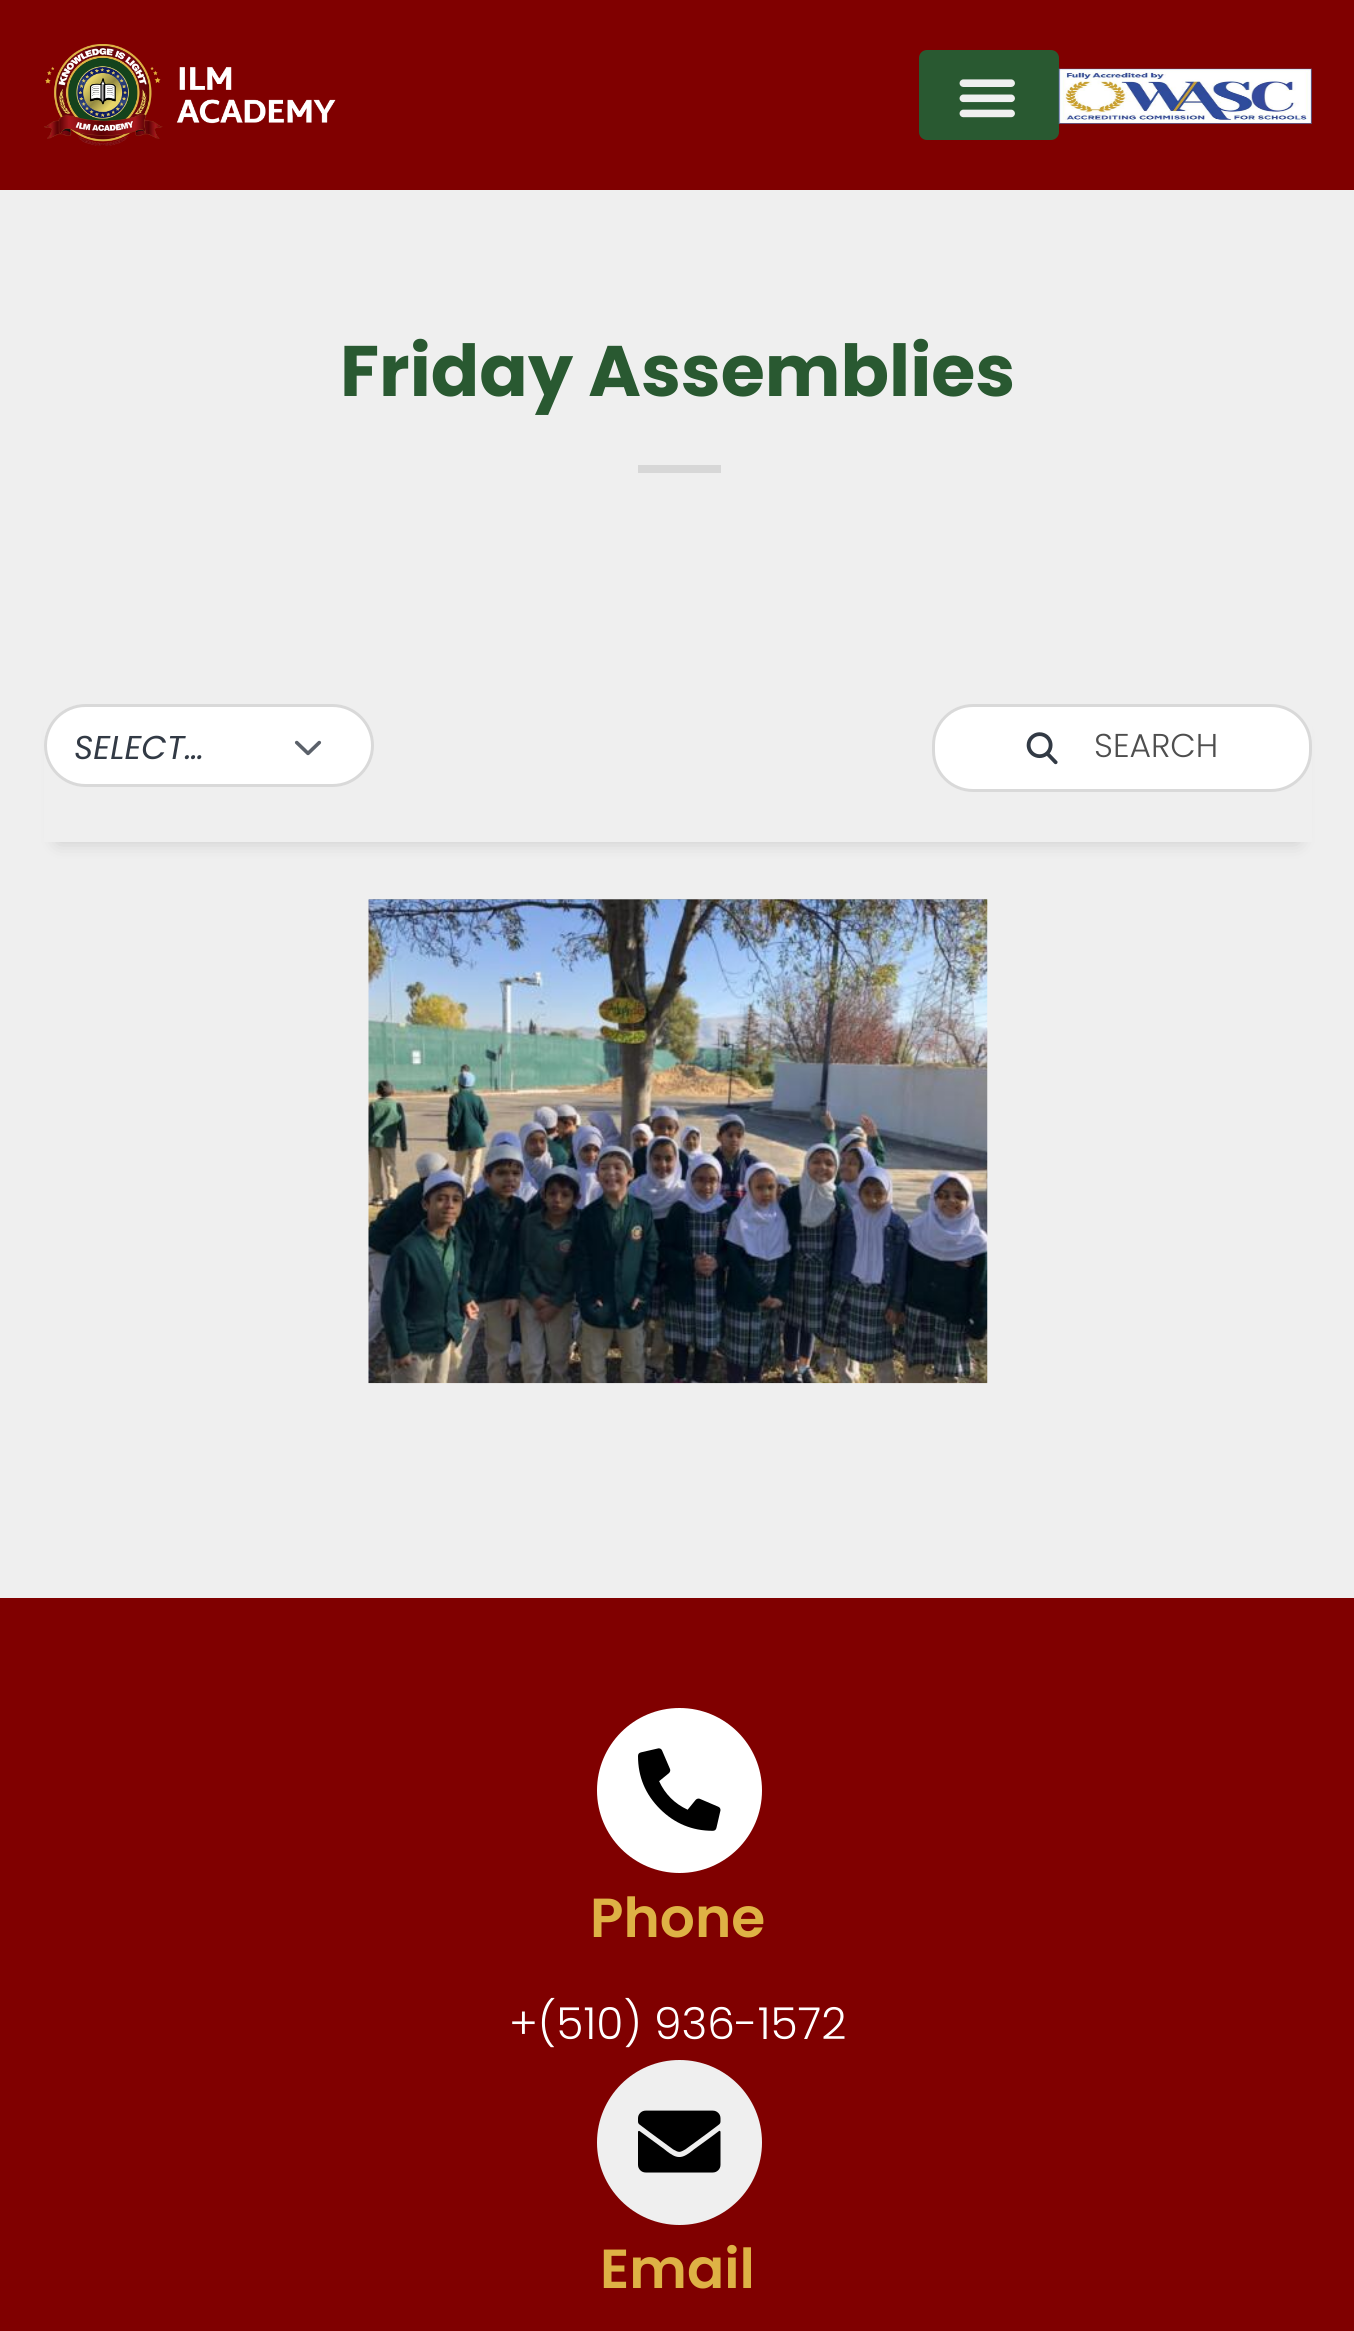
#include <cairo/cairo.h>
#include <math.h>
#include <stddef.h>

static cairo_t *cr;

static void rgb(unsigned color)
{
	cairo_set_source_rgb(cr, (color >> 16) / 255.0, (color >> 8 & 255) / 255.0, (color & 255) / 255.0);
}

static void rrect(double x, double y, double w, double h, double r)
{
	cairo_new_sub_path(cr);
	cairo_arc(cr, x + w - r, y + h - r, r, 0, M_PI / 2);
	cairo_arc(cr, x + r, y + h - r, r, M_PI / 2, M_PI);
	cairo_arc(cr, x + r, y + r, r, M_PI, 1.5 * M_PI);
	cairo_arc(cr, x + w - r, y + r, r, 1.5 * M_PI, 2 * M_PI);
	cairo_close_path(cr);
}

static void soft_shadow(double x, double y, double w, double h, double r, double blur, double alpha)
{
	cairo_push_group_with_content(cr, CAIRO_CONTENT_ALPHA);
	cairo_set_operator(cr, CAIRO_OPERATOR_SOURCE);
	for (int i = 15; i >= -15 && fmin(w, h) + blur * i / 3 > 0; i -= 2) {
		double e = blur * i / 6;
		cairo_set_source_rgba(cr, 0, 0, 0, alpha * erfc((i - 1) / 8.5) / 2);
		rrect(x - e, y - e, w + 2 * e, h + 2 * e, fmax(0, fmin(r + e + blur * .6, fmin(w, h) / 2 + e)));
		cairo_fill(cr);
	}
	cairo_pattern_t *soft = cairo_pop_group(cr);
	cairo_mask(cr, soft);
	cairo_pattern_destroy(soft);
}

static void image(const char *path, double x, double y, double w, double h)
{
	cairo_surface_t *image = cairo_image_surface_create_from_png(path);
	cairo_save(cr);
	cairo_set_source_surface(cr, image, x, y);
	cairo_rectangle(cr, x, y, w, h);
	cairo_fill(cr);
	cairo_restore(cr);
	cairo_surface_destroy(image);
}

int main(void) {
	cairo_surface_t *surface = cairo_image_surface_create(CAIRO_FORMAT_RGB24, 1354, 2331);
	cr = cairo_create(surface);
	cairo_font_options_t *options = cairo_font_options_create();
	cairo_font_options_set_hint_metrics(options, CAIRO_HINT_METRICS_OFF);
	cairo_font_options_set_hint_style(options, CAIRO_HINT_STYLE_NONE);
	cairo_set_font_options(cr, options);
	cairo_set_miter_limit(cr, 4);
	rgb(0xefefef);
	cairo_paint(cr);
	rgb(0x800000);
	cairo_rectangle(cr, 0, 0, 1354, 190);
	cairo_fill(cr);
	image("img/1.png", 44, 44, 292, 102);
	rgb(0x295931);
	rrect(919, 50, 140, 90, 8);
	cairo_fill(cr);
	image("img/2.png", 959, 79, 56, 39);
	image("img/3.png", 1058, 68, 254, 56);
	rgb(0xd7d7d7);
	cairo_rectangle(cr, 638, 465, 83, 8);
	cairo_fill(cr);
	cairo_save(cr);
	cairo_set_fill_rule(cr, CAIRO_FILL_RULE_EVEN_ODD);
	cairo_new_path(cr);
	cairo_move_to(cr, 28, 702);
	cairo_line_to(cr, 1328, 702);
	cairo_line_to(cr, 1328, 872);
	cairo_line_to(cr, 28, 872);
	cairo_close_path(cr);
	cairo_move_to(cr, 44, 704);
	cairo_line_to(cr, 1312, 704);
	cairo_line_to(cr, 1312, 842);
	cairo_line_to(cr, 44, 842);
	cairo_close_path(cr);
	cairo_clip(cr);
	rgb(0x000000);
	soft_shadow(58, 732, 1240, 110, 0, 9.5, 0.16);
	cairo_restore(cr);
	rgb(0xffffff);
	rrect(44, 704, 330, 83, 41.5);
	cairo_fill(cr);
	rrect(45.5, 705.5, 327, 80, 40);
	cairo_set_source_rgba(cr, 0, 0, 0, 0.15);
	cairo_set_line_width(cr, 3);
	cairo_stroke(cr);
	image("img/4.png", 294, 740, 28, 16);
	rgb(0xffffff);
	rrect(932, 704, 380, 88, 41);
	cairo_fill(cr);
	rrect(933.5, 705.5, 377, 85, 39.5);
	cairo_set_source_rgba(cr, 0, 0, 0, 0.15);
	cairo_stroke(cr);
	image("img/5.png", 1026, 732, 32, 33);
	rgb(0xa8a8a8);
	cairo_rectangle(cr, 369, 899, 618, 1);
	cairo_fill(cr);
	image("img/6.png", 368, 899, 620, 485);
	rgb(0x800000);
	cairo_rectangle(cr, 0, 1598, 1354, 733);
	cairo_fill(cr);
	rgb(0xffffff);
	cairo_arc(cr, 679.5, 1790.5, 82.5, 0, 2 * M_PI);
	cairo_fill(cr);
	image("img/7.png", 638, 1748, 83, 83);
	rgb(0xefefef);
	cairo_arc(cr, 679.5, 2142.5, 82.5, 0, 2 * M_PI);
	cairo_fill(cr);
	image("img/8.png", 638, 2110, 83, 63);
	cairo_select_font_face(cr, "Poppins", CAIRO_FONT_SLANT_NORMAL, CAIRO_FONT_WEIGHT_BOLD);
	cairo_set_font_size(cr, 71.5);
	rgb(0x295931);
	cairo_move_to(cr, 340, 396);
	cairo_show_text(cr, "Friday Assemblies");
	cairo_select_font_face(cr, "Poppins", CAIRO_FONT_SLANT_ITALIC, CAIRO_FONT_WEIGHT_NORMAL);
	cairo_set_font_size(cr, 33);
	rgb(0x323a45);
	cairo_move_to(cr, 74, 759);
	cairo_show_text(cr, "SELECT…");
	cairo_select_font_face(cr, "Poppins Light", CAIRO_FONT_SLANT_NORMAL, CAIRO_FONT_WEIGHT_NORMAL);
	rgb(0x4e4e4e);
	cairo_move_to(cr, 1094, 757);
	cairo_show_text(cr, "SEARCH");
	cairo_select_font_face(cr, "Poppins SemiBold", CAIRO_FONT_SLANT_NORMAL, CAIRO_FONT_WEIGHT_NORMAL);
	cairo_set_font_size(cr, 55);
	rgb(0xdeb245);
	cairo_move_to(cr, 590, 1937);
	cairo_show_text(cr, "Phone");
	cairo_select_font_face(cr, "Poppins Light", CAIRO_FONT_SLANT_NORMAL, CAIRO_FONT_WEIGHT_NORMAL);
	cairo_set_font_size(cr, 44);
	rgb(0xffffff);
	cairo_move_to(cr, 509, 2039);
	cairo_show_text(cr, "+(510) 936-1572");
	cairo_select_font_face(cr, "Poppins SemiBold", CAIRO_FONT_SLANT_NORMAL, CAIRO_FONT_WEIGHT_NORMAL);
	cairo_set_font_size(cr, 55);
	rgb(0xdeb245);
	cairo_move_to(cr, 600, 2288);
	cairo_show_text(cr, "Email");
	cairo_surface_write_to_png(surface, "page.png");
	cairo_font_options_destroy(options);
	cairo_destroy(cr);
	cairo_surface_destroy(surface);
	return 0;
}
